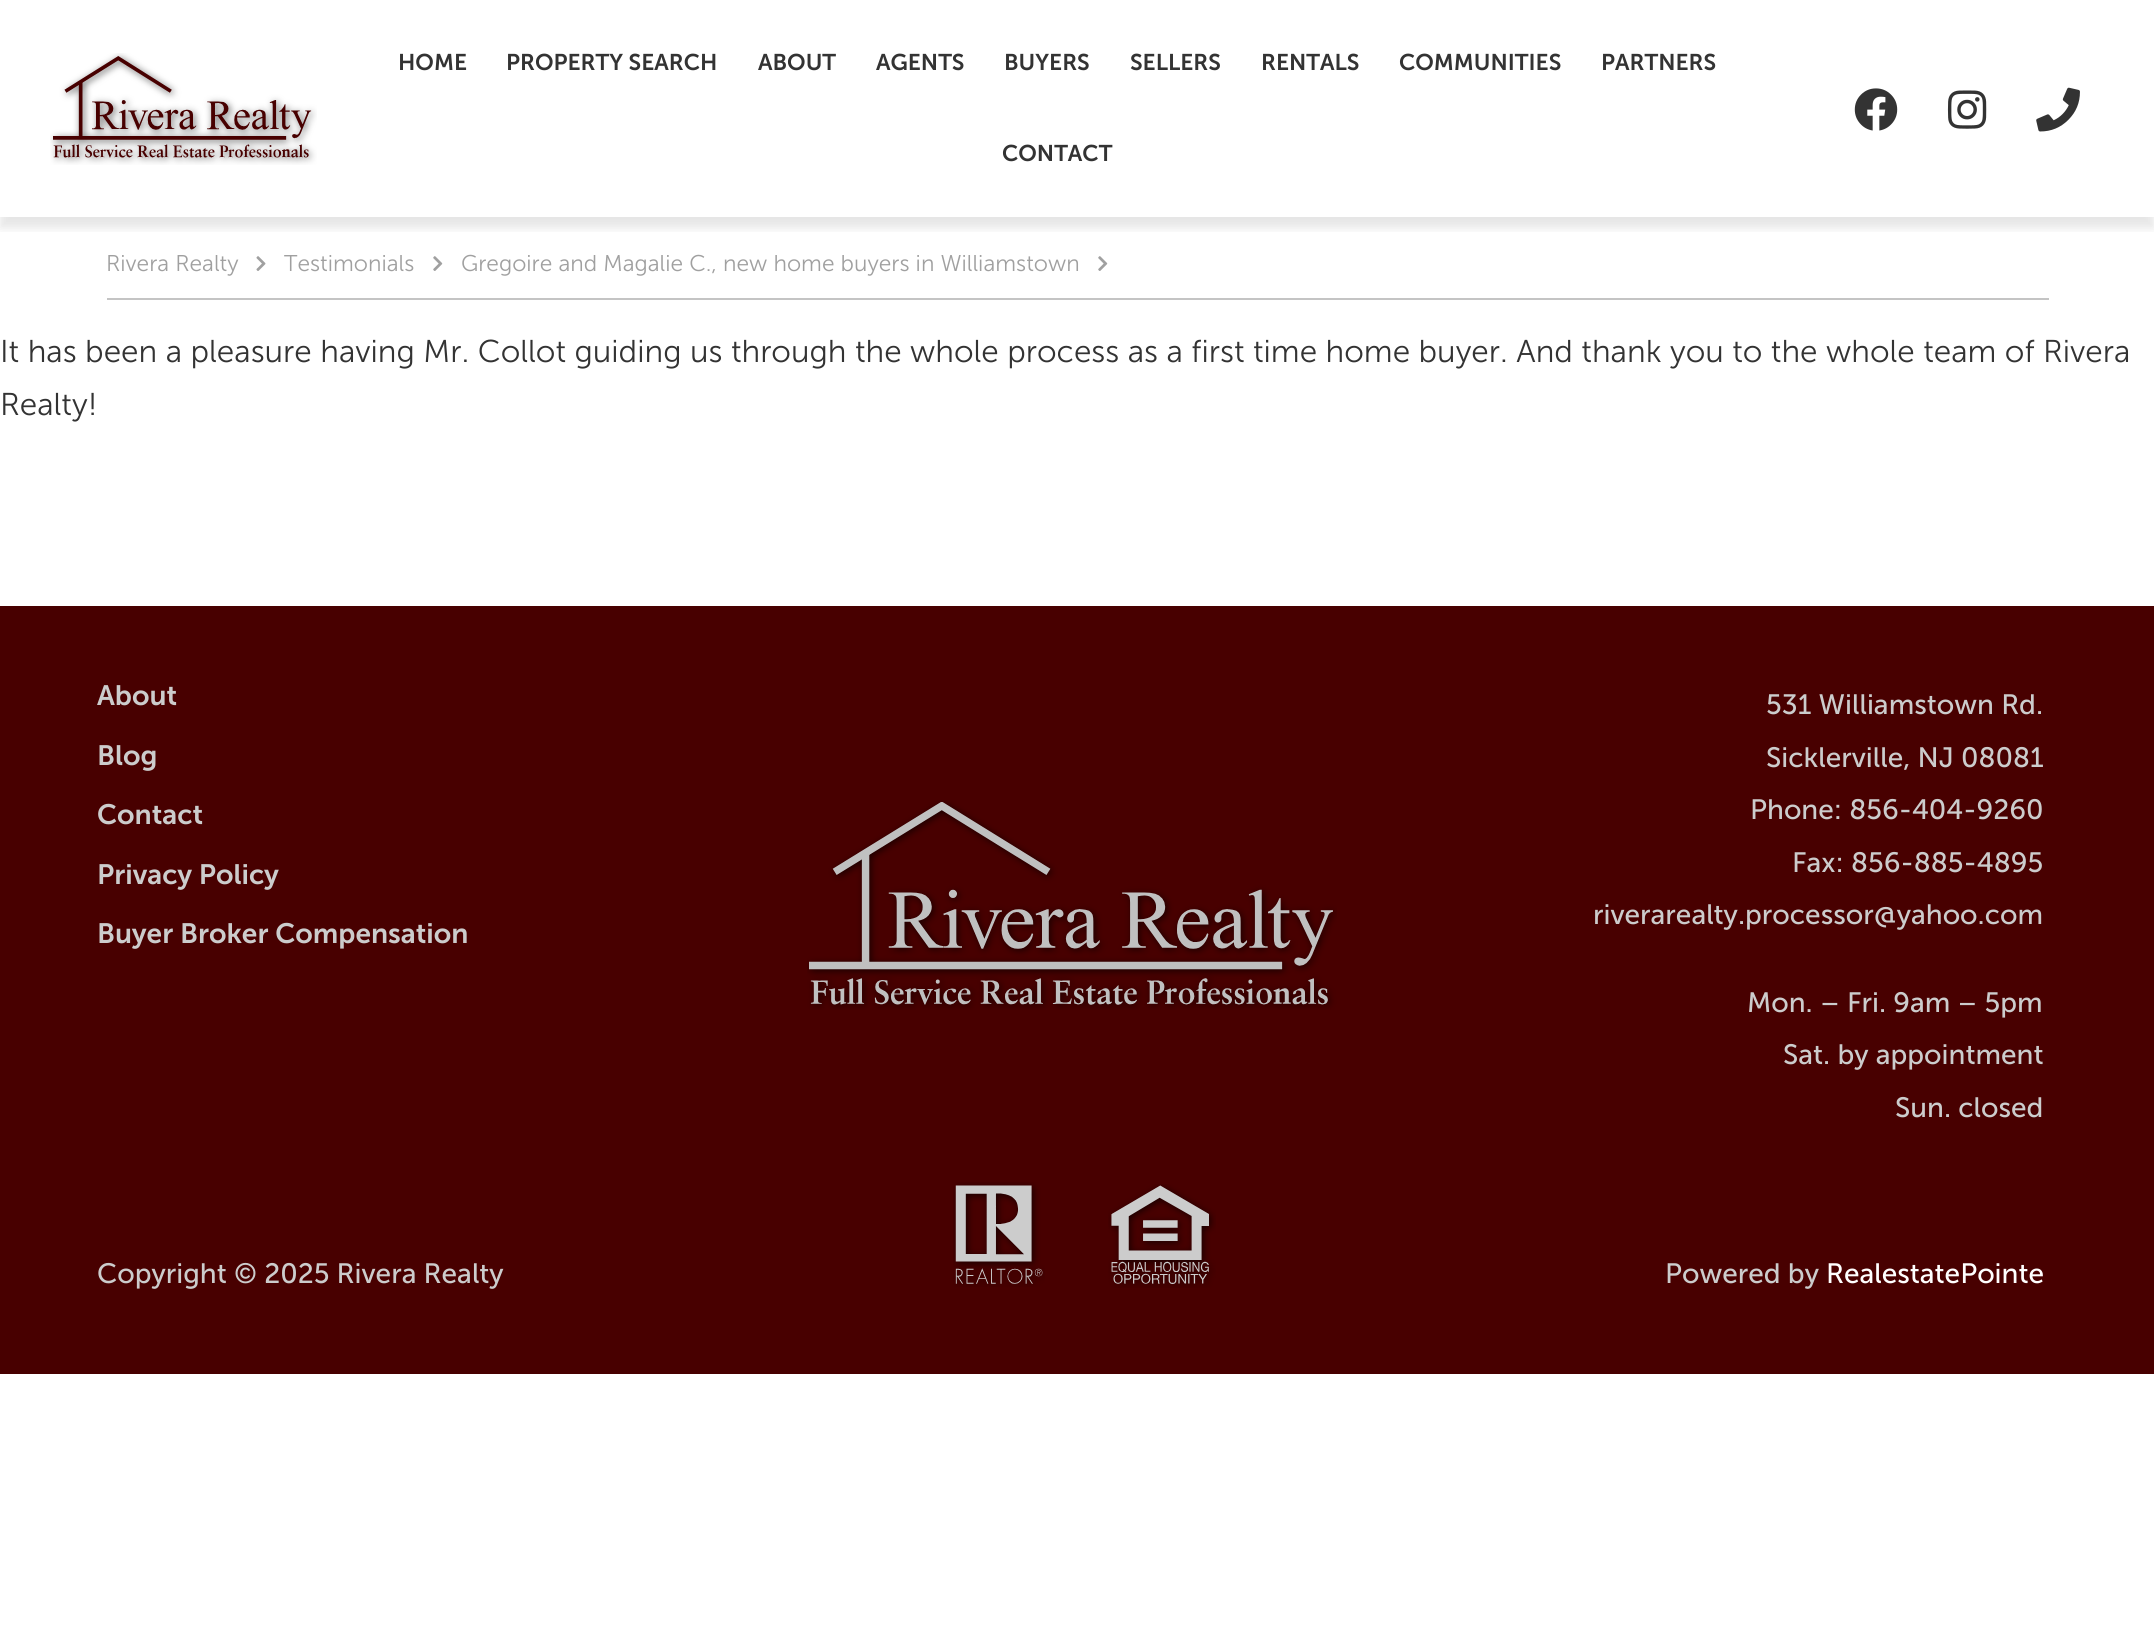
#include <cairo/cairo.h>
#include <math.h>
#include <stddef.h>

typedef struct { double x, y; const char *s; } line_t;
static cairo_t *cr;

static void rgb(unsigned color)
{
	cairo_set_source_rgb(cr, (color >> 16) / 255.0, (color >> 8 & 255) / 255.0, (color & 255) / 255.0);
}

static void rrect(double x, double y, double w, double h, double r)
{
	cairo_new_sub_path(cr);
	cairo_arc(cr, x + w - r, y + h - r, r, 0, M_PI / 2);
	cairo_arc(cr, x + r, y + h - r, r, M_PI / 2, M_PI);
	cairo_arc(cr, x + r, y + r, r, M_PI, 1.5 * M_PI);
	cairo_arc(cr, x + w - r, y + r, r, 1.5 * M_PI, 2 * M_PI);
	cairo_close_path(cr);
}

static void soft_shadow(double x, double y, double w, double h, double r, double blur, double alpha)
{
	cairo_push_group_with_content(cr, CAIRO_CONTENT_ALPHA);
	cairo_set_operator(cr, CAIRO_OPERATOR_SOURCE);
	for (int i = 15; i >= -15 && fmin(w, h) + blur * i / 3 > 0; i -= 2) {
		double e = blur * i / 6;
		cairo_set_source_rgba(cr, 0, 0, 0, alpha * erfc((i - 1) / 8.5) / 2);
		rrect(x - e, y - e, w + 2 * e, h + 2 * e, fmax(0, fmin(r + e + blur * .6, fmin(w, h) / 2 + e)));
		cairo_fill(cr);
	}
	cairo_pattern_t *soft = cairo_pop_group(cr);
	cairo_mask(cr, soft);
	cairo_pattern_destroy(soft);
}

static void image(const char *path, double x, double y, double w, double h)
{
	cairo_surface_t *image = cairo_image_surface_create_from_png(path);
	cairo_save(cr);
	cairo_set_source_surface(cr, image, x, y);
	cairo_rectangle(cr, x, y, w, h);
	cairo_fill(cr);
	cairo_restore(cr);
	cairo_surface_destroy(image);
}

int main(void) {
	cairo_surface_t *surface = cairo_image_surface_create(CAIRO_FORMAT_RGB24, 2154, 1626);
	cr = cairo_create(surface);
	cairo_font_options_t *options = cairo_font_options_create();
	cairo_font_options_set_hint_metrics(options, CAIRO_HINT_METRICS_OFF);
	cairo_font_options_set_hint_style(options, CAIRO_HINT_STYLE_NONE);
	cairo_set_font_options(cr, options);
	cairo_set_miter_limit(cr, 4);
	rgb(0xffffff);
	cairo_paint(cr);
	cairo_save(cr);
	cairo_rectangle(cr, 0, 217, 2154, 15);
	cairo_clip(cr);
	rgb(0x000000);
	soft_shadow(0, 11, 2154, 217, 0, 5, 0.1);
	cairo_restore(cr);
	image("img/1.png", 50, 53, 267, 112);
	image("img/2.png", 1854, 88, 44, 43);
	image("img/3.png", 1947, 90, 40, 39);
	image("img/4.png", 2036, 87, 44, 45);
	rgb(0xc4c4c4);
	cairo_rectangle(cr, 107, 298, 1942, 2);
	cairo_fill(cr);
	image("img/5.png", 256, 256, 10, 15);
	image("img/6.png", 433, 256, 10, 15);
	image("img/6.png", 1098, 256, 10, 15);
	rgb(0x480000);
	cairo_rectangle(cr, 0, 606, 2154, 768);
	cairo_fill(cr);
	image("img/7.png", 807, 800, 530, 210);
	image("img/8.png", 953, 1182, 92, 105);
	image("img/9.png", 1108, 1184, 108, 104);
	cairo_select_font_face(cr, "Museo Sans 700 SemiBold", CAIRO_FONT_SLANT_NORMAL, CAIRO_FONT_WEIGHT_NORMAL);
	cairo_set_font_size(cr, 22.75);
	rgb(0x333333);
	{
		static const line_t items[] = {
			{398, 70, "HOME"},
			{506, 70, "PROPERTY SEARCH"},
			{758, 70, "ABOUT"},
			{876, 70, "AGENTS"},
			{1004, 70, "BUYERS"},
			{1130, 70, "SELLERS"},
			{1261, 70, "RENTALS"},
			{1399, 70, "COMMUNITIES"},
			{1601, 70, "PARTNERS"},
			{1002, 161, "CONTACT"},
		};
		for (size_t i = 0; i < sizeof items / sizeof *items; i++) {
			cairo_move_to(cr, items[i].x, items[i].y);
			cairo_show_text(cr, items[i].s);
		}
	}
	cairo_select_font_face(cr, "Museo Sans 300 Light", CAIRO_FONT_SLANT_NORMAL, CAIRO_FONT_WEIGHT_NORMAL);
	rgb(0xa0a0a0);
	{
		static const line_t items[] = {
			{106, 271, "Rivera Realty"},
			{284, 271, "Testimonials"},
			{461, 271, "Gregoire and Magalie C., new home buyers in Williamstown"},
		};
		for (size_t i = 0; i < sizeof items / sizeof *items; i++) {
			cairo_move_to(cr, items[i].x, items[i].y);
			cairo_show_text(cr, items[i].s);
		}
	}
	cairo_set_font_size(cr, 31.5);
	rgb(0x333333);
	cairo_move_to(cr, 0, 362);
	cairo_show_text(cr, "It has been a pleasure having Mr. Collot guiding us through the whole process as a first time home buyer. And thank you to the whole team of Rivera");
	cairo_move_to(cr, 0, 415);
	cairo_show_text(cr, "Realty!");
	cairo_select_font_face(cr, "Museo Sans 700 SemiBold", CAIRO_FONT_SLANT_NORMAL, CAIRO_FONT_WEIGHT_NORMAL);
	cairo_set_font_size(cr, 28);
	rgb(0xcccccc);
	{
		static const line_t items[] = {
			{97, 705, "About"},
			{97, 765, "Blog"},
			{97, 824, "Contact"},
			{97, 884, "Privacy Policy"},
			{97, 943, "Buyer Broker Compensation"},
		};
		for (size_t i = 0; i < sizeof items / sizeof *items; i++) {
			cairo_move_to(cr, items[i].x, items[i].y);
			cairo_show_text(cr, items[i].s);
		}
	}
	cairo_select_font_face(cr, "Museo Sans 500", CAIRO_FONT_SLANT_NORMAL, CAIRO_FONT_WEIGHT_NORMAL);
	{
		static const line_t items[] = {
			{1766, 714, "531 Williamstown Rd."},
			{1766, 767, "Sicklerville, NJ 08081"},
			{1750, 819, "Phone: 856-404-9260"},
			{1792, 872, "Fax: 856-885-4895"},
			{1593, 924, "riverarealty.processor@yahoo.com"},
			{1747, 1012, "Mon. – Fri. 9am – 5pm"},
			{1783, 1064, "Sat. by appointment"},
			{1895, 1117, "Sun. closed"},
			{97, 1283, "Copyright © 2025 Rivera Realty"},
			{1665, 1283, "Powered by"},
		};
		for (size_t i = 0; i < sizeof items / sizeof *items; i++) {
			cairo_move_to(cr, items[i].x, items[i].y);
			cairo_show_text(cr, items[i].s);
		}
	}
	rgb(0xffffff);
	cairo_move_to(cr, 1826, 1283);
	cairo_show_text(cr, "RealestatePointe");
	cairo_surface_write_to_png(surface, "page.png");
	cairo_font_options_destroy(options);
	cairo_destroy(cr);
	cairo_surface_destroy(surface);
	return 0;
}
